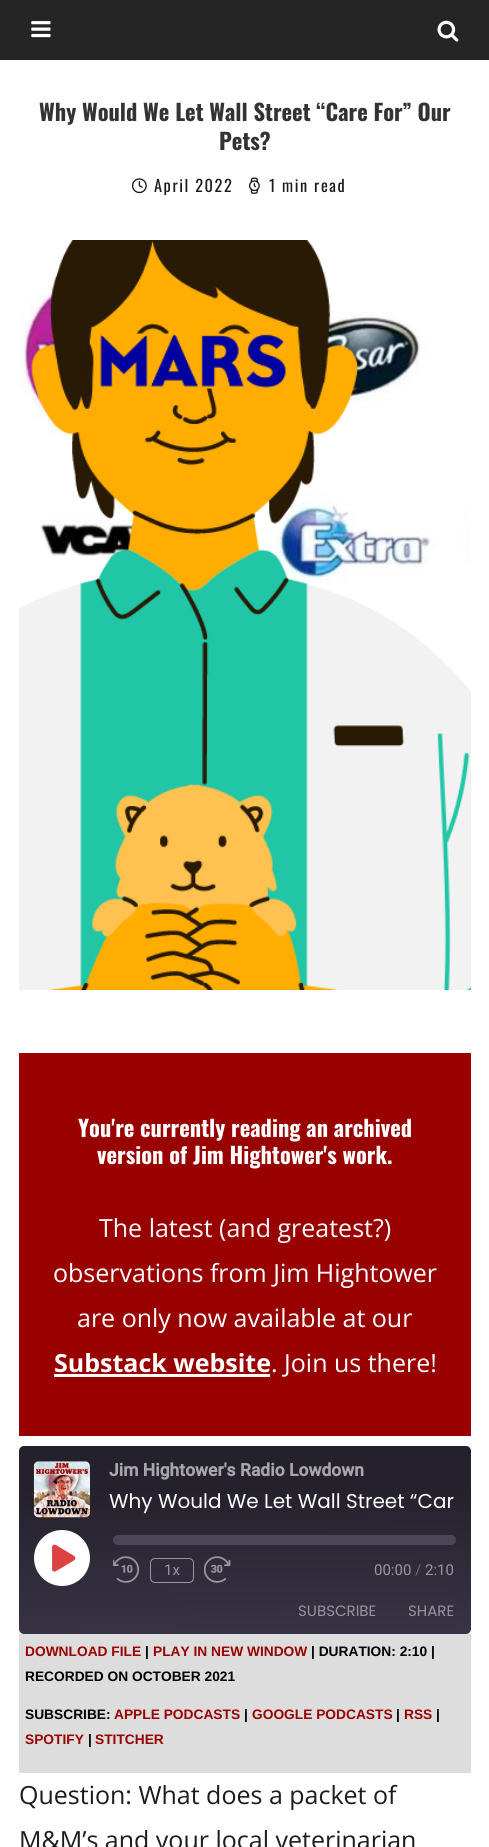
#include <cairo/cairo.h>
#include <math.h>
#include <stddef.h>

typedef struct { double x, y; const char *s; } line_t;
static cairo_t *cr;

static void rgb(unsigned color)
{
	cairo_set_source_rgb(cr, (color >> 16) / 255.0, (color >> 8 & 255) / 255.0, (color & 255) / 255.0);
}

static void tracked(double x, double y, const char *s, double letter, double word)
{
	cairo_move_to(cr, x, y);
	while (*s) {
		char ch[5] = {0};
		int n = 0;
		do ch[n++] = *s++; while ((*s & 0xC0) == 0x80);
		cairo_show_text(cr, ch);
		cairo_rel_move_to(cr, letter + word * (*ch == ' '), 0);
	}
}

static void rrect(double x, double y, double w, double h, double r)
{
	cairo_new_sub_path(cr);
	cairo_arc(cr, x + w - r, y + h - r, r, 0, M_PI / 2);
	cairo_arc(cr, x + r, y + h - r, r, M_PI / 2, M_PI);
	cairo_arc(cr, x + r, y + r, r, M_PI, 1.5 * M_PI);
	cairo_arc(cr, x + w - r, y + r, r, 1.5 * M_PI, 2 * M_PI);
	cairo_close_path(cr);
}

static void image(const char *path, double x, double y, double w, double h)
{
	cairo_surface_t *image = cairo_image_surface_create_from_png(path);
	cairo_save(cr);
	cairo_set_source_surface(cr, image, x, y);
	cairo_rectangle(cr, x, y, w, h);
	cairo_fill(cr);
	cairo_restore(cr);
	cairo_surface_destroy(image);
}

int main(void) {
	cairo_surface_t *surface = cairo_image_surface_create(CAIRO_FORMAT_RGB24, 489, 1847);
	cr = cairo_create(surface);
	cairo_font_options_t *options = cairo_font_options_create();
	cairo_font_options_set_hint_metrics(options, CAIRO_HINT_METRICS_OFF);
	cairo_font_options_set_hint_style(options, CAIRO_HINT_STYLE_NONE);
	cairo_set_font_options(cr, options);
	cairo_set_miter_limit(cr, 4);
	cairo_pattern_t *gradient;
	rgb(0xffffff);
	cairo_paint(cr);
	rgb(0x252525);
	cairo_rectangle(cr, 0, 0, 489, 60);
	cairo_fill(cr);
	image("img/1.png", 31, 21, 20, 17);
	image("img/2.png", 437, 20, 22, 22);
	image("img/3.png", 131, 178, 16, 16);
	image("img/4.png", 249, 177, 11, 17);
	image("img/5.png", 19, 240, 453, 750);
	rgb(0x990000);
	cairo_rectangle(cr, 19, 1053, 452, 383);
	cairo_fill(cr);
	rgb(0xffffff);
	cairo_rectangle(cr, 54, 1374, 216, 3);
	cairo_fill(cr);
	gradient = cairo_pattern_create_linear(246, 1635, 244, 1445);
	cairo_pattern_add_color_stop_rgba(gradient, 0.01, 0.22, 0.2, 0.267, 1);
	cairo_pattern_add_color_stop_rgba(gradient, 0.78, 0.141, 0.129, 0.173, 1);
	cairo_set_source(cr, gradient);
	cairo_pattern_destroy(gradient);
	rrect(19, 1446, 452, 188, 5);
	cairo_fill(cr);
	image("img/6.png", 33, 1461, 57, 57);
	rgb(0xffffff);
	cairo_arc(cr, 62, 1558, 28, 0, 2 * M_PI);
	cairo_fill(cr);
	image("img/7.png", 52, 1544, 24, 28);
	rgb(0x4c4659);
	rrect(113, 1535, 343, 10, 5);
	cairo_fill(cr);
	image("img/8.png", 113, 1556, 27, 27);
	rrect(150.5, 1558.5, 43, 24, 4.5);
	cairo_set_source_rgba(cr, 1, 1, 1, 0.5);
	cairo_set_line_width(cr, 1);
	cairo_stroke(cr);
	image("img/9.png", 204, 1556, 27, 27);
	rgb(0xdddddd);
	cairo_rectangle(cr, 19, 1634, 452, 139);
	cairo_fill(cr);
	cairo_select_font_face(cr, "Oswald", CAIRO_FONT_SLANT_NORMAL, CAIRO_FONT_WEIGHT_BOLD);
	cairo_set_font_size(cr, 22.5);
	rgb(0x333333);
	cairo_move_to(cr, 39, 121);
	cairo_show_text(cr, "Why Would We Let Wall Street “Care For” Our");
	cairo_move_to(cr, 219, 150);
	cairo_show_text(cr, "Pets?");
	cairo_select_font_face(cr, "Oswald", CAIRO_FONT_SLANT_NORMAL, CAIRO_FONT_WEIGHT_NORMAL);
	cairo_set_font_size(cr, 16.25);
	rgb(0x1c1c1c);
	tracked(154, 192, "April 2022", 1.6, 0);
	tracked(269, 192, "1 min read", 1.6, 0);
	cairo_select_font_face(cr, "Oswald", CAIRO_FONT_SLANT_NORMAL, CAIRO_FONT_WEIGHT_BOLD);
	cairo_set_font_size(cr, 22.5);
	rgb(0xffffff);
	cairo_move_to(cr, 78, 1137);
	cairo_show_text(cr, "You're currently reading an archived");
	cairo_move_to(cr, 97, 1164);
	cairo_show_text(cr, "version of Jim Hightower's work.");
	cairo_select_font_face(cr, "Open Sans", CAIRO_FONT_SLANT_NORMAL, CAIRO_FONT_WEIGHT_NORMAL);
	cairo_set_font_size(cr, 25);
	{
		static const line_t items[] = {
			{99, 1237, "The latest (and greatest?)"},
			{53, 1282, "observations from Jim Hightower"},
			{77, 1327, "are only now available at our"},
		};
		for (size_t i = 0; i < sizeof items / sizeof *items; i++) {
			cairo_move_to(cr, items[i].x, items[i].y);
			cairo_show_text(cr, items[i].s);
		}
	}
	cairo_select_font_face(cr, "Open Sans", CAIRO_FONT_SLANT_NORMAL, CAIRO_FONT_WEIGHT_BOLD);
	cairo_move_to(cr, 54, 1372);
	cairo_show_text(cr, "Substack website");
	cairo_select_font_face(cr, "Open Sans", CAIRO_FONT_SLANT_NORMAL, CAIRO_FONT_WEIGHT_NORMAL);
	cairo_move_to(cr, 271, 1372);
	cairo_show_text(cr, ". Join us there!");
	cairo_select_font_face(cr, "Roboto", CAIRO_FONT_SLANT_NORMAL, CAIRO_FONT_WEIGHT_BOLD);
	cairo_set_font_size(cr, 17.5);
	rgb(0xa7a6ab);
	cairo_move_to(cr, 109, 1476);
	cairo_show_text(cr, "Jim Hightower's Radio Lowdown");
	cairo_select_font_face(cr, "Poppins", CAIRO_FONT_SLANT_NORMAL, CAIRO_FONT_WEIGHT_NORMAL);
	cairo_set_font_size(cr, 20);
	rgb(0xffffff);
	cairo_move_to(cr, 109, 1508);
	cairo_show_text(cr, "Why Would We Let Wall Street “Car");
	cairo_select_font_face(cr, "Roboto", CAIRO_FONT_SLANT_NORMAL, CAIRO_FONT_WEIGHT_NORMAL);
	cairo_set_font_size(cr, 15);
	rgb(0x97959c);
	cairo_move_to(cr, 164, 1575);
	cairo_show_text(cr, "1x");
	cairo_move_to(cr, 374, 1575);
	cairo_show_text(cr, "00:00");
	rgb(0x6e6b75);
	cairo_move_to(cr, 415, 1575);
	cairo_show_text(cr, "/");
	rgb(0x97959c);
	cairo_move_to(cr, 425, 1575);
	cairo_show_text(cr, "2:10");
	cairo_select_font_face(cr, "Poppins", CAIRO_FONT_SLANT_NORMAL, CAIRO_FONT_WEIGHT_NORMAL);
	cairo_move_to(cr, 298, 1616);
	cairo_show_text(cr, "SUBSCRIBE");
	cairo_move_to(cr, 408, 1616);
	cairo_show_text(cr, "SHARE");
	cairo_select_font_face(cr, "Liberation Sans", CAIRO_FONT_SLANT_NORMAL, CAIRO_FONT_WEIGHT_BOLD);
	cairo_set_font_size(cr, 13.75);
	rgb(0x990000);
	cairo_move_to(cr, 25, 1656);
	cairo_show_text(cr, "DOWNLOAD FILE");
	rgb(0x000000);
	cairo_move_to(cr, 145, 1656);
	cairo_show_text(cr, "|");
	rgb(0x990000);
	cairo_move_to(cr, 153, 1656);
	cairo_show_text(cr, "PLAY IN NEW WINDOW");
	rgb(0x000000);
	{
		static const line_t items[] = {
			{311, 1656, "| DURATION: 2:10 |"},
			{25, 1681, "RECORDED ON OCTOBER 2021"},
			{25, 1719, "SUBSCRIBE:"},
		};
		for (size_t i = 0; i < sizeof items / sizeof *items; i++) {
			cairo_move_to(cr, items[i].x, items[i].y);
			cairo_show_text(cr, items[i].s);
		}
	}
	rgb(0x990000);
	cairo_move_to(cr, 114, 1719);
	cairo_show_text(cr, "APPLE PODCASTS");
	rgb(0x000000);
	cairo_move_to(cr, 244, 1719);
	cairo_show_text(cr, "|");
	rgb(0x990000);
	cairo_move_to(cr, 252, 1719);
	cairo_show_text(cr, "GOOGLE PODCASTS");
	rgb(0x000000);
	cairo_move_to(cr, 396, 1719);
	cairo_show_text(cr, "|");
	rgb(0x990000);
	cairo_move_to(cr, 404, 1719);
	cairo_show_text(cr, "RSS");
	rgb(0x000000);
	cairo_move_to(cr, 436, 1719);
	cairo_show_text(cr, "|");
	rgb(0x990000);
	cairo_move_to(cr, 25, 1744);
	cairo_show_text(cr, "SPOTIFY");
	rgb(0x000000);
	cairo_move_to(cr, 88, 1744);
	cairo_show_text(cr, "|");
	rgb(0x990000);
	cairo_move_to(cr, 95, 1744);
	cairo_show_text(cr, "STITCHER");
	cairo_select_font_face(cr, "Open Sans", CAIRO_FONT_SLANT_NORMAL, CAIRO_FONT_WEIGHT_NORMAL);
	cairo_set_font_size(cr, 25);
	rgb(0x1c1c1c);
	cairo_move_to(cr, 19, 1804);
	cairo_show_text(cr, "Question: What does a packet of");
	cairo_move_to(cr, 19, 1849);
	cairo_show_text(cr, "M&M’s and your local veterinarian");
	cairo_surface_write_to_png(surface, "page.png");
	cairo_font_options_destroy(options);
	cairo_destroy(cr);
	cairo_surface_destroy(surface);
	return 0;
}
